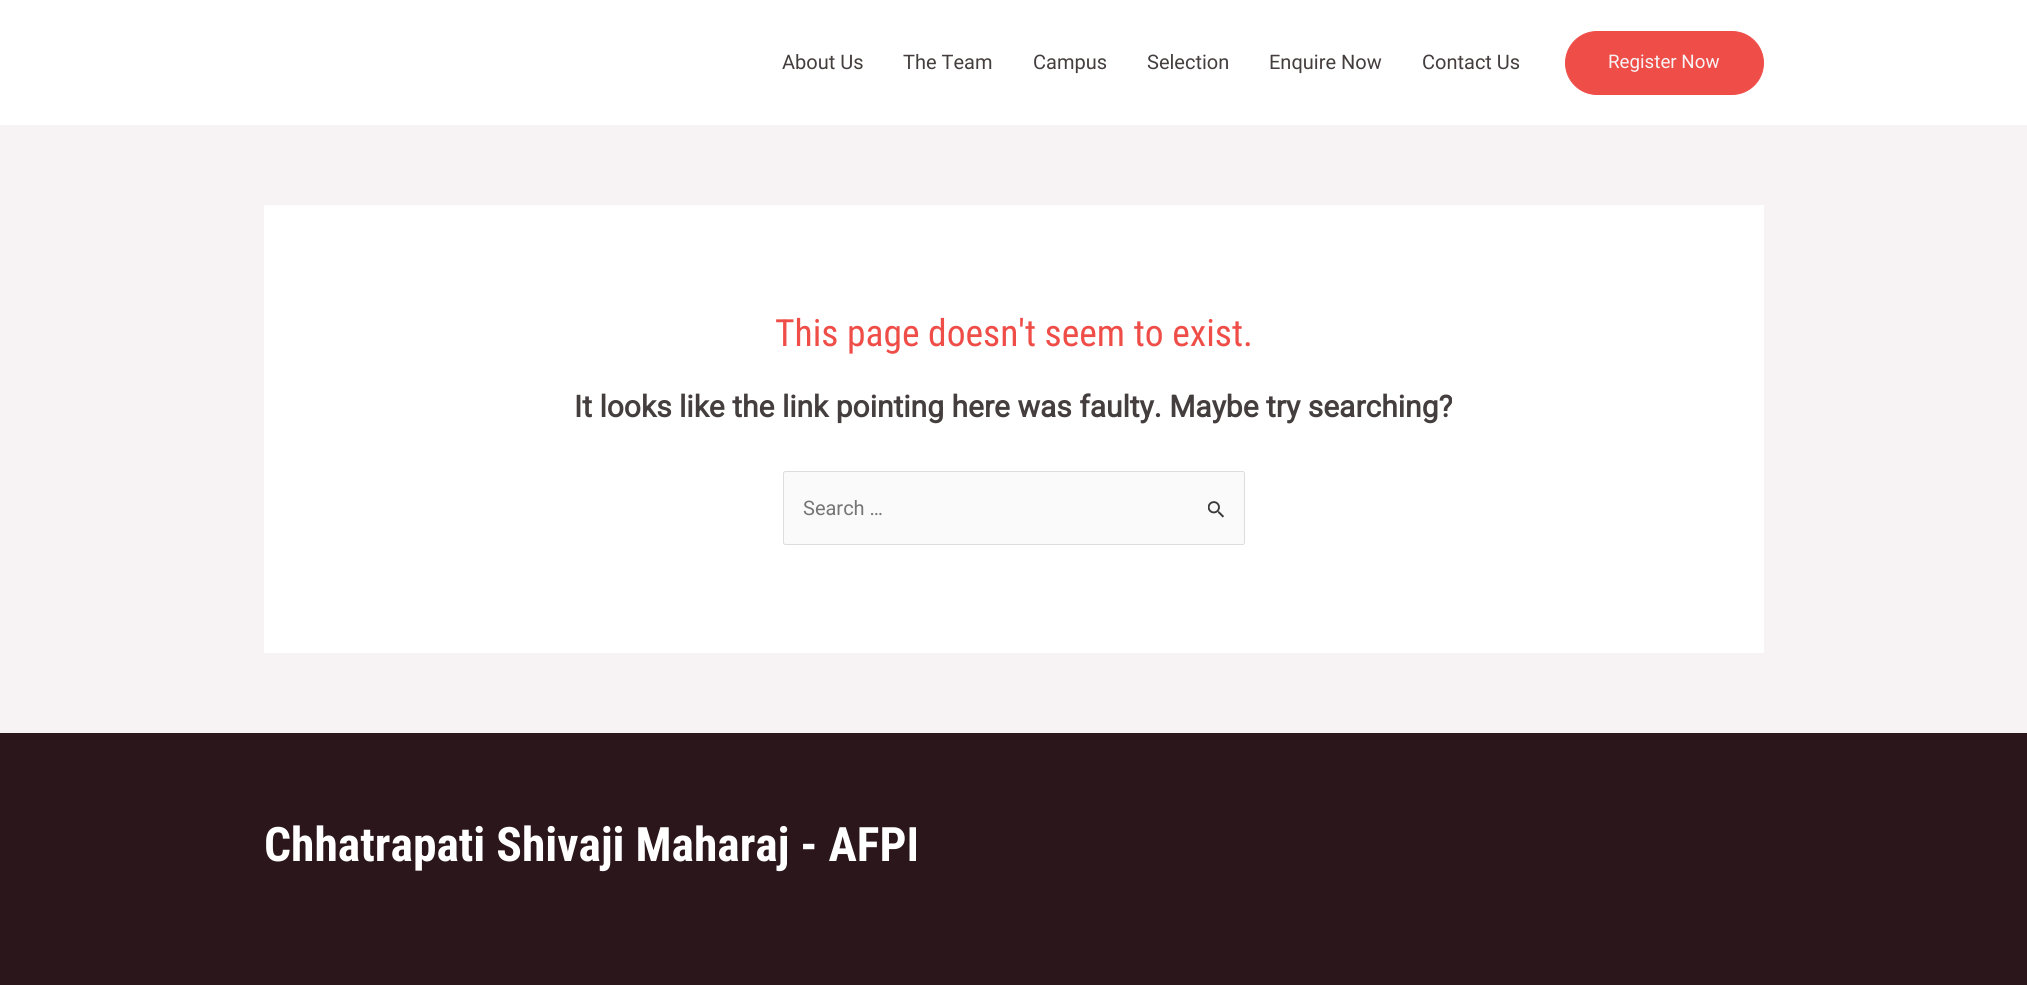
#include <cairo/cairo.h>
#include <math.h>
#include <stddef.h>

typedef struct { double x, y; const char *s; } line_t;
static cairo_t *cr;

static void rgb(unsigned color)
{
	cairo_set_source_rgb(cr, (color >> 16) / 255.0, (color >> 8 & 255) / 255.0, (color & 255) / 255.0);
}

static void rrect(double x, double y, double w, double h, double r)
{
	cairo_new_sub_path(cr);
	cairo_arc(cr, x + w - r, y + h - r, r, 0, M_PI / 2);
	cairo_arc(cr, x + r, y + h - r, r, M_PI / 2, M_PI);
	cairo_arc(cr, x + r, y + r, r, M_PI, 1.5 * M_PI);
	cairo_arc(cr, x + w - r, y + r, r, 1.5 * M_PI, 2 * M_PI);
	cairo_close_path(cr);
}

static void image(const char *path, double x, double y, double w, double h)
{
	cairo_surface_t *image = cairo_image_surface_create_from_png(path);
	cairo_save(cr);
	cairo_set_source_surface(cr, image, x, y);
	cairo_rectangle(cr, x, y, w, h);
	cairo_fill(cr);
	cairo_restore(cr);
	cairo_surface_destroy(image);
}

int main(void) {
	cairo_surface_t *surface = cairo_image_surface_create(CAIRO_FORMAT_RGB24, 2027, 985);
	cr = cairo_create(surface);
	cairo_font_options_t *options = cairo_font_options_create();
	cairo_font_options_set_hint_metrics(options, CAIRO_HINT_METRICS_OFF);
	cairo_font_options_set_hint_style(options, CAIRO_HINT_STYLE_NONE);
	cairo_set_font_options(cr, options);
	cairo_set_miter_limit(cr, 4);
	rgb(0xf7f3f5);
	cairo_paint(cr);
	rgb(0xffffff);
	cairo_rectangle(cr, 0, 0, 2027, 125);
	cairo_fill(cr);
	rgb(0xef4d48);
	rrect(1565.5, 31.5, 198, 63, 31.5);
	cairo_fill_preserve(cr);
	cairo_set_line_width(cr, 1);
	cairo_stroke(cr);
	rgb(0xffffff);
	cairo_rectangle(cr, 264, 205, 1500, 448);
	cairo_fill(cr);
	rgb(0xfafafa);
	rrect(783.5, 471.5, 461, 73, 2);
	cairo_fill_preserve(cr);
	rgb(0xdddddd);
	cairo_stroke(cr);
	image("img/1.png", 1208, 501, 16, 17);
	rgb(0x2b161b);
	cairo_rectangle(cr, 0, 733, 2027, 252);
	cairo_fill(cr);
	cairo_select_font_face(cr, "Roboto", CAIRO_FONT_SLANT_NORMAL, CAIRO_FONT_WEIGHT_NORMAL);
	cairo_set_font_size(cr, 20);
	rgb(0x453e3e);
	{
		static const line_t items[] = {
			{782, 69, "About Us"},
			{903, 69, "The Team"},
			{1033, 69, "Campus"},
			{1147, 69, "Selection"},
			{1269, 69, "Enquire Now"},
			{1422, 69, "Contact Us"},
		};
		for (size_t i = 0; i < sizeof items / sizeof *items; i++) {
			cairo_move_to(cr, items[i].x, items[i].y);
			cairo_show_text(cr, items[i].s);
		}
	}
	cairo_set_font_size(cr, 18.75);
	rgb(0xf7f3f5);
	cairo_move_to(cr, 1608, 68);
	cairo_show_text(cr, "Register Now");
	cairo_select_font_face(cr, "Roboto Condensed", CAIRO_FONT_SLANT_NORMAL, CAIRO_FONT_WEIGHT_NORMAL);
	cairo_set_font_size(cr, 37.5);
	rgb(0xef4d48);
	cairo_move_to(cr, 775, 346);
	cairo_show_text(cr, "This page doesn't seem to exist.");
	cairo_select_font_face(cr, "Roboto", CAIRO_FONT_SLANT_NORMAL, CAIRO_FONT_WEIGHT_BOLD);
	cairo_set_font_size(cr, 30);
	rgb(0x453e3e);
	cairo_move_to(cr, 574, 417);
	cairo_show_text(cr, "It looks like the link pointing here was faulty. Maybe try searching?");
	cairo_select_font_face(cr, "Roboto", CAIRO_FONT_SLANT_NORMAL, CAIRO_FONT_WEIGHT_NORMAL);
	cairo_set_font_size(cr, 20);
	rgb(0x757575);
	cairo_move_to(cr, 803, 515);
	cairo_show_text(cr, "Search …");
	cairo_select_font_face(cr, "Roboto Condensed", CAIRO_FONT_SLANT_NORMAL, CAIRO_FONT_WEIGHT_BOLD);
	cairo_set_font_size(cr, 47.5);
	rgb(0xffffff);
	cairo_move_to(cr, 264, 861);
	cairo_show_text(cr, "Chhatrapati Shivaji Maharaj - AFPI");
	cairo_surface_write_to_png(surface, "page.png");
	cairo_font_options_destroy(options);
	cairo_destroy(cr);
	cairo_surface_destroy(surface);
	return 0;
}
